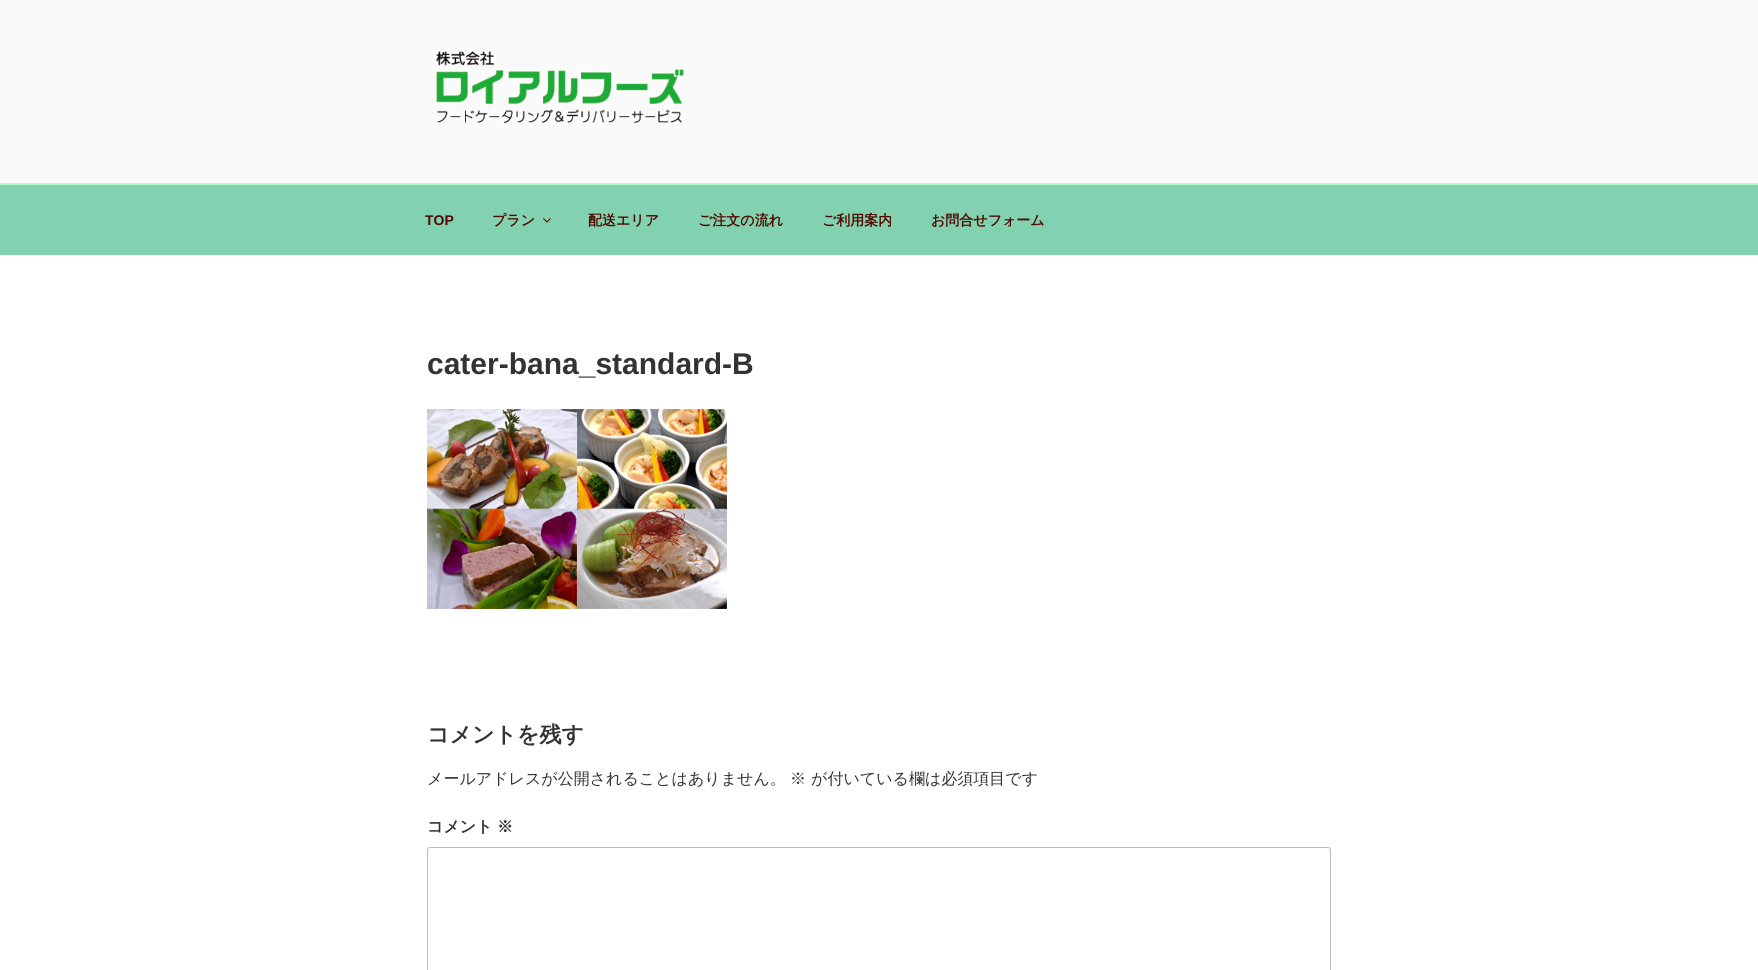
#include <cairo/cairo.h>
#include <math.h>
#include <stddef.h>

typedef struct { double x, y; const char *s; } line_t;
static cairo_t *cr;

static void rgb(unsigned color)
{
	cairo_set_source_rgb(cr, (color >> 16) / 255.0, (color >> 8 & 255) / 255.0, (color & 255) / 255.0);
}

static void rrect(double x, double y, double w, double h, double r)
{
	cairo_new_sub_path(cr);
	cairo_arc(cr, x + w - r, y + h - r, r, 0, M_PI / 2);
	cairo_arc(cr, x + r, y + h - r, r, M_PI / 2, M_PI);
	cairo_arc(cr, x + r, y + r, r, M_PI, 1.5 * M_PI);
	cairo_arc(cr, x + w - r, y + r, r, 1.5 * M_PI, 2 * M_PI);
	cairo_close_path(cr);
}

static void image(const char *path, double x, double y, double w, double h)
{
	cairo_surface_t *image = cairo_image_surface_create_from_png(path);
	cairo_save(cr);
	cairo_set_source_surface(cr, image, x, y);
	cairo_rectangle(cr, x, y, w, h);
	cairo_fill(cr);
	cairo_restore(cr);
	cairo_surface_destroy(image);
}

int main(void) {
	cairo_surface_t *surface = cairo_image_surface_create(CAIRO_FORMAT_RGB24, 1758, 970);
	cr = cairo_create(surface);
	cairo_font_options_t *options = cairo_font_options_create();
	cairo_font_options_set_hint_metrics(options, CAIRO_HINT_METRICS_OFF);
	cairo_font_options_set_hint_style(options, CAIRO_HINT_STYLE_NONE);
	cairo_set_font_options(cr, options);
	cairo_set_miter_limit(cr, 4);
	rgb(0xffffff);
	cairo_paint(cr);
	rgb(0xfafafa);
	cairo_rectangle(cr, 0, 0, 1758, 183);
	cairo_fill(cr);
	image("img/1.png", 435, 51, 249, 73);
	rgb(0x82d2b2);
	cairo_rectangle(cr, 0, 185, 1758, 70);
	cairo_fill(cr);
	rgb(0xb4fac8);
	cairo_rectangle(cr, 0, 183, 1758, 2);
	cairo_fill(cr);
	image("img/2.png", 543, 218, 8, 5);
	image("img/3.png", 427, 409, 300, 200);
	rrect(427.5, 847.5, 903, 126, 2.5);
	rgb(0xbbbbbb);
	cairo_set_line_width(cr, 1);
	cairo_stroke(cr);
	cairo_select_font_face(cr, "Liberation Sans", CAIRO_FONT_SLANT_NORMAL, CAIRO_FONT_WEIGHT_BOLD);
	cairo_set_font_size(cr, 14);
	rgb(0x500a00);
	cairo_move_to(cr, 425, 225);
	cairo_show_text(cr, "TOP");
	cairo_select_font_face(cr, "WenQuanYi Zen Hei", CAIRO_FONT_SLANT_NORMAL, CAIRO_FONT_WEIGHT_BOLD);
	{
		static const line_t items[] = {
			{492, 225, "プラン"},
			{588, 225, "配送エリア"},
			{698, 225, "ご注文の流れ"},
			{822, 225, "ご利用案内"},
			{931, 225, "お問合せフォーム"},
		};
		for (size_t i = 0; i < sizeof items / sizeof *items; i++) {
			cairo_move_to(cr, items[i].x, items[i].y);
			cairo_show_text(cr, items[i].s);
		}
	}
	cairo_select_font_face(cr, "Liberation Sans", CAIRO_FONT_SLANT_NORMAL, CAIRO_FONT_WEIGHT_BOLD);
	cairo_set_font_size(cr, 30);
	rgb(0x333333);
	cairo_move_to(cr, 427, 374);
	cairo_show_text(cr, "cater-bana_standard-B");
	cairo_select_font_face(cr, "WenQuanYi Zen Hei", CAIRO_FONT_SLANT_NORMAL, CAIRO_FONT_WEIGHT_BOLD);
	cairo_set_font_size(cr, 22);
	cairo_move_to(cr, 427, 742);
	cairo_show_text(cr, "コメントを残す");
	cairo_select_font_face(cr, "WenQuanYi Zen Hei Medium", CAIRO_FONT_SLANT_NORMAL, CAIRO_FONT_WEIGHT_NORMAL);
	cairo_set_font_size(cr, 16);
	{
		static const line_t items[] = {
			{427, 784, "メールアドレスが公開されることはありません。"},
			{790, 784, "※"},
			{811, 784, "が付いている欄は必須項目です"},
		};
		for (size_t i = 0; i < sizeof items / sizeof *items; i++) {
			cairo_move_to(cr, items[i].x, items[i].y);
			cairo_show_text(cr, items[i].s);
		}
	}
	cairo_select_font_face(cr, "WenQuanYi Zen Hei", CAIRO_FONT_SLANT_NORMAL, CAIRO_FONT_WEIGHT_BOLD);
	cairo_move_to(cr, 427, 832);
	cairo_show_text(cr, "コメント");
	cairo_move_to(cr, 497, 832);
	cairo_show_text(cr, "※");
	cairo_surface_write_to_png(surface, "page.png");
	cairo_font_options_destroy(options);
	cairo_destroy(cr);
	cairo_surface_destroy(surface);
	return 0;
}
